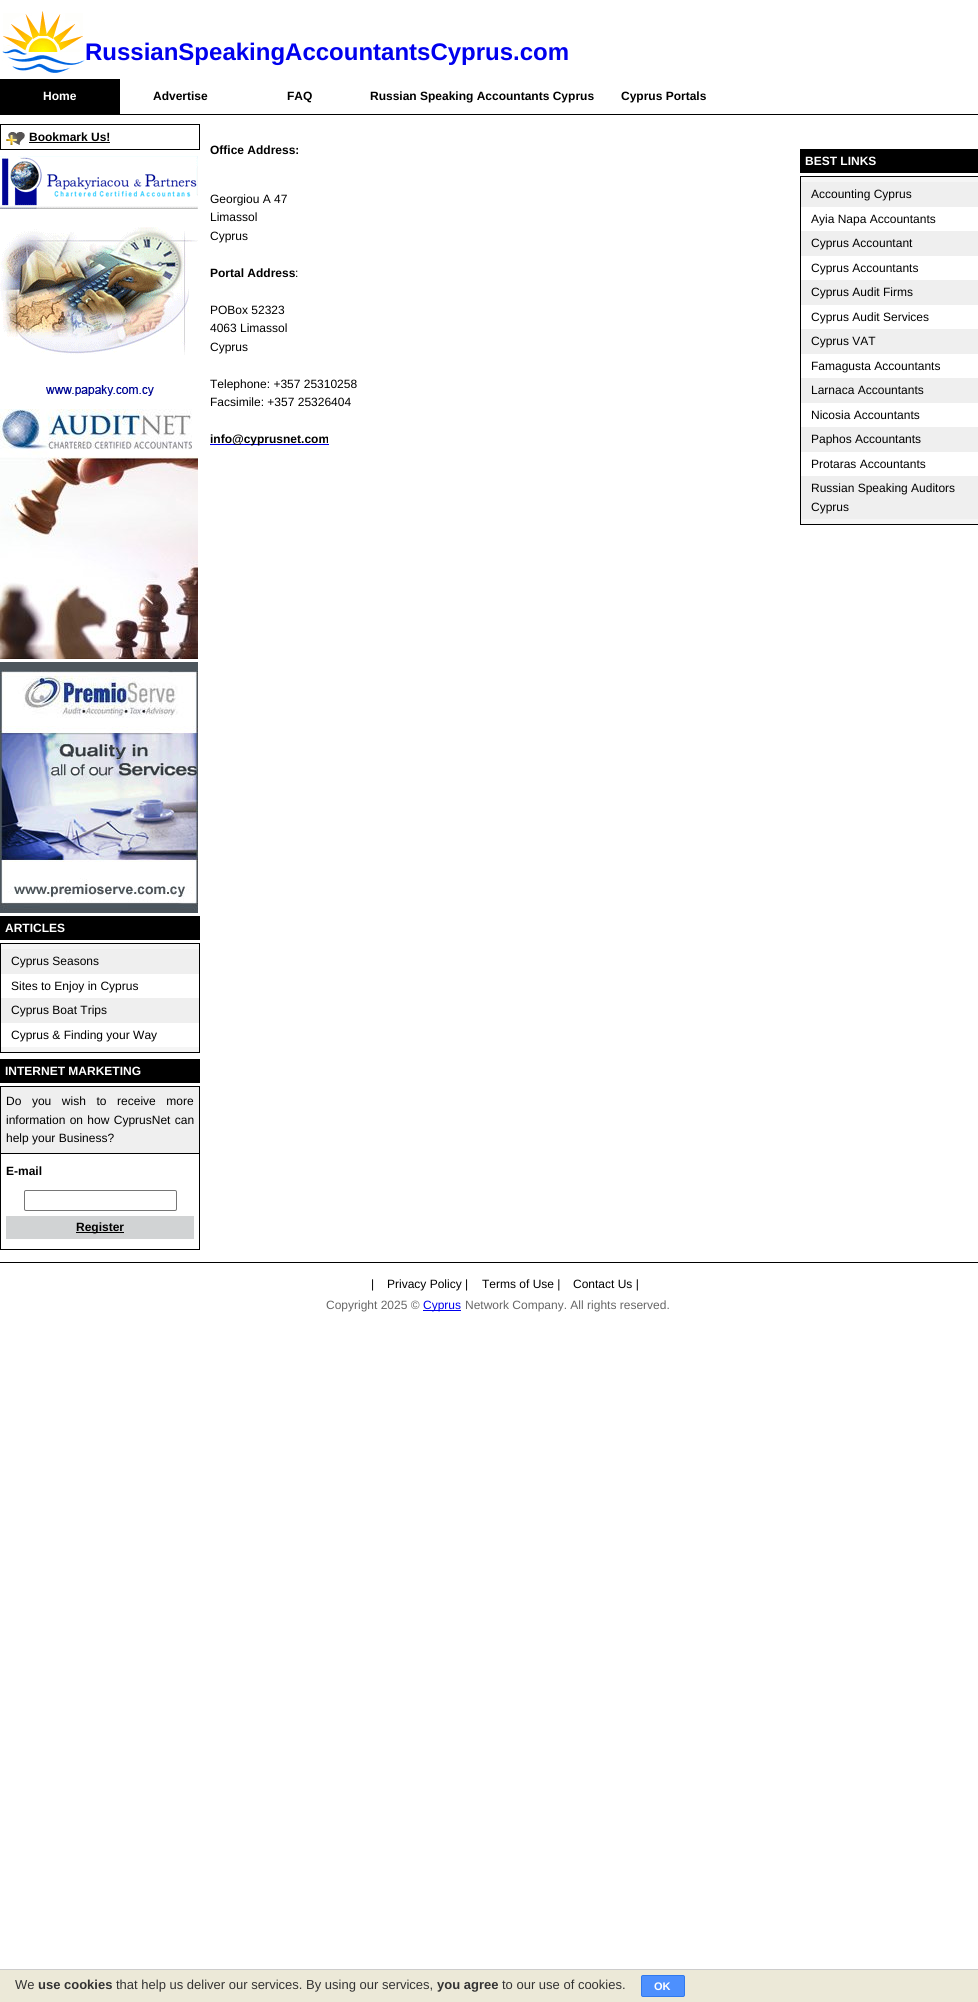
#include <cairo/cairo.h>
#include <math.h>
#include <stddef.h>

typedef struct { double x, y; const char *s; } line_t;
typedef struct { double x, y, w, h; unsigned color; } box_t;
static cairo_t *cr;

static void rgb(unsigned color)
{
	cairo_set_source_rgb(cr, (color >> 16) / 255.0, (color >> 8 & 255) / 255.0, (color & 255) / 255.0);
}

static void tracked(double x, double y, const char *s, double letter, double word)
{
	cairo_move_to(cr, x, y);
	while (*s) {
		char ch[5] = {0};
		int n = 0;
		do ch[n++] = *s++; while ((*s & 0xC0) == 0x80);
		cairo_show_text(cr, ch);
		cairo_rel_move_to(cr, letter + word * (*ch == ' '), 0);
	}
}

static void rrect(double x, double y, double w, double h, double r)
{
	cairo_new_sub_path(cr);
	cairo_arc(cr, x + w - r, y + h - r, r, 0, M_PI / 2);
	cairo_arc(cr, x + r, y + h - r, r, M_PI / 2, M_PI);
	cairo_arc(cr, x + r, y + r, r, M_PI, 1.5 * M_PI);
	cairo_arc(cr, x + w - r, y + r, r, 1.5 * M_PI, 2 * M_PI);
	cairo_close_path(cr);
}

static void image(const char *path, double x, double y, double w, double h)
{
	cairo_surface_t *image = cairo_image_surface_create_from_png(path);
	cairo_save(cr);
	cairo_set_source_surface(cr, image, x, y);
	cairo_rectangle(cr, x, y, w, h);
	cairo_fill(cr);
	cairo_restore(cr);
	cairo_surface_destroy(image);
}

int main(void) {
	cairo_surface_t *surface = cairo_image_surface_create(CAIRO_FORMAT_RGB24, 978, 2002);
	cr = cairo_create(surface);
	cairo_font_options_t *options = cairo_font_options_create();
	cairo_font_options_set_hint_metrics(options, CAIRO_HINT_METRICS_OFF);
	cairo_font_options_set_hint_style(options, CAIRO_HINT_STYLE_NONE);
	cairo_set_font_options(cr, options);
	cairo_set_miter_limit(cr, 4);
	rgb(0xffffff);
	cairo_paint(cr);
	image("img/1.png", 2, 11, 83, 62);
	rgb(0x000000);
	cairo_rectangle(cr, 0, 114, 978, 1);
	cairo_fill(cr);
	cairo_rectangle(cr, 0, 79, 120, 35);
	cairo_fill(cr);
	cairo_rectangle(cr, 0.5, 124.5, 199, 25);
	cairo_set_line_width(cr, 1);
	cairo_stroke(cr);
	image("img/2.png", 6, 132, 19, 13);
	cairo_rectangle(cr, 29, 142, 81, 1);
	cairo_fill(cr);
	image("img/3.png", 0, 156, 198, 240);
	image("img/4.png", 0, 409, 198, 250);
	image("img/5.png", 0, 662, 198, 251);
	cairo_rectangle(cr, 0, 916, 200, 24);
	cairo_fill(cr);
	rgb(0xf5f5f5);
	cairo_rectangle(cr, 0.5, 943.5, 199, 109);
	cairo_fill_preserve(cr);
	rgb(0x000000);
	cairo_stroke(cr);
	{
		static const box_t items[] = {
			{1, 949, 198, 25, 0xefefef},
			{1, 974, 198, 24, 0xffffff},
			{1, 998, 198, 25, 0xefefef},
			{1, 1023, 198, 24, 0xffffff},
			{0, 1059, 200, 24, 0x000000},
		};
		for (size_t i = 0; i < sizeof items / sizeof *items; i++) {
			rgb(items[i].color);
			cairo_rectangle(cr, items[i].x, items[i].y, items[i].w, items[i].h);
			cairo_fill(cr);
		}
	}
	cairo_rectangle(cr, 0.5, 1086.5, 199, 163);
	cairo_stroke(cr);
	rgb(0xefefef);
	cairo_rectangle(cr, 1, 1087, 198, 66);
	cairo_fill(cr);
	rgb(0x000000);
	cairo_rectangle(cr, 1, 1153, 198, 1);
	cairo_fill(cr);
	rrect(24.5, 1190.5, 152, 20, 1.5);
	rgb(0x767676);
	cairo_stroke(cr);
	{
		static const box_t items[] = {
			{6, 1216, 188, 23, 0xd1d3d4},
			{76, 1232, 48, 1, 0x000000},
			{210, 444, 119, 1, 0x0000ee},
			{800, 149, 178, 24, 0x000000},
		};
		for (size_t i = 0; i < sizeof items / sizeof *items; i++) {
			rgb(items[i].color);
			cairo_rectangle(cr, items[i].x, items[i].y, items[i].w, items[i].h);
			cairo_fill(cr);
		}
	}
	rgb(0xf5f5f5);
	cairo_rectangle(cr, 800.5, 176.5, 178, 348);
	cairo_fill_preserve(cr);
	rgb(0x000000);
	cairo_stroke(cr);
	{
		static const box_t items[] = {
			{801, 182, 177, 25, 0xefefef},
			{801, 207, 177, 24, 0xffffff},
			{801, 231, 177, 25, 0xefefef},
			{801, 256, 177, 24, 0xffffff},
			{801, 280, 177, 25, 0xefefef},
			{801, 305, 177, 24, 0xffffff},
			{801, 329, 177, 25, 0xefefef},
			{801, 354, 177, 24, 0xffffff},
			{801, 378, 177, 25, 0xefefef},
			{801, 403, 177, 24, 0xffffff},
			{801, 427, 177, 25, 0xefefef},
			{801, 452, 177, 24, 0xffffff},
			{801, 476, 177, 43, 0xefefef},
			{0, 1262, 978, 1, 0x000000},
			{423, 1310, 38, 1, 0x0000ee},
			{0, 1970, 978, 32, 0xece9d8},
			{0, 1969, 978, 1, 0xcccccc},
		};
		for (size_t i = 0; i < sizeof items / sizeof *items; i++) {
			rgb(items[i].color);
			cairo_rectangle(cr, items[i].x, items[i].y, items[i].w, items[i].h);
			cairo_fill(cr);
		}
	}
	rgb(0x4d90fe);
	rrect(641.5, 1975.5, 43, 21, 1.5);
	cairo_fill_preserve(cr);
	rgb(0x3079ed);
	cairo_stroke(cr);
	cairo_select_font_face(cr, "Liberation Sans", CAIRO_FONT_SLANT_NORMAL, CAIRO_FONT_WEIGHT_BOLD);
	cairo_set_font_size(cr, 24);
	rgb(0x0000ee);
	cairo_move_to(cr, 85, 60);
	cairo_show_text(cr, "RussianSpeakingAccountantsCyprus.com");
	cairo_set_font_size(cr, 12);
	rgb(0xffffff);
	cairo_move_to(cr, 43, 100);
	cairo_show_text(cr, "Home");
	rgb(0x000000);
	{
		static const line_t items[] = {
			{153, 100, "Advertise"},
			{287, 100, "FAQ"},
			{370, 100, "Russian Speaking Accountants Cyprus"},
			{621, 100, "Cyprus Portals"},
			{29, 141, "Bookmark Us!"},
		};
		for (size_t i = 0; i < sizeof items / sizeof *items; i++) {
			cairo_move_to(cr, items[i].x, items[i].y);
			cairo_show_text(cr, items[i].s);
		}
	}
	rgb(0xffffff);
	cairo_move_to(cr, 5, 932);
	cairo_show_text(cr, "ARTICLES");
	cairo_select_font_face(cr, "Liberation Sans", CAIRO_FONT_SLANT_NORMAL, CAIRO_FONT_WEIGHT_NORMAL);
	rgb(0x000000);
	{
		static const line_t items[] = {
			{11, 965, "Cyprus Seasons"},
			{11, 990, "Sites to Enjoy in Cyprus"},
			{11, 1014, "Cyprus Boat Trips"},
			{11, 1039, "Cyprus & Finding your Way"},
		};
		for (size_t i = 0; i < sizeof items / sizeof *items; i++) {
			cairo_move_to(cr, items[i].x, items[i].y);
			cairo_show_text(cr, items[i].s);
		}
	}
	cairo_select_font_face(cr, "Liberation Sans", CAIRO_FONT_SLANT_NORMAL, CAIRO_FONT_WEIGHT_BOLD);
	rgb(0xffffff);
	cairo_move_to(cr, 5, 1075);
	cairo_show_text(cr, "INTERNET MARKETING");
	cairo_select_font_face(cr, "Liberation Sans", CAIRO_FONT_SLANT_NORMAL, CAIRO_FONT_WEIGHT_NORMAL);
	rgb(0x000000);
	tracked(6, 1105, "Do you wish to receive more", 0, 7.25);
	tracked(6, 1124, "information on how CyprusNet can", 0, 1);
	cairo_move_to(cr, 6, 1142);
	cairo_show_text(cr, "help your Business?");
	cairo_select_font_face(cr, "Liberation Sans", CAIRO_FONT_SLANT_NORMAL, CAIRO_FONT_WEIGHT_BOLD);
	{
		static const line_t items[] = {
			{6, 1175, "E-mail"},
			{76, 1231, "Register"},
			{210, 154, "Office Address:"},
		};
		for (size_t i = 0; i < sizeof items / sizeof *items; i++) {
			cairo_move_to(cr, items[i].x, items[i].y);
			cairo_show_text(cr, items[i].s);
		}
	}
	cairo_select_font_face(cr, "Liberation Sans", CAIRO_FONT_SLANT_NORMAL, CAIRO_FONT_WEIGHT_NORMAL);
	{
		static const line_t items[] = {
			{210, 203, "Georgiou A 47"},
			{210, 221, "Limassol"},
			{210, 240, "Cyprus"},
		};
		for (size_t i = 0; i < sizeof items / sizeof *items; i++) {
			cairo_move_to(cr, items[i].x, items[i].y);
			cairo_show_text(cr, items[i].s);
		}
	}
	cairo_select_font_face(cr, "Liberation Sans", CAIRO_FONT_SLANT_NORMAL, CAIRO_FONT_WEIGHT_BOLD);
	cairo_move_to(cr, 210, 277);
	cairo_show_text(cr, "Portal Address");
	cairo_select_font_face(cr, "Liberation Sans", CAIRO_FONT_SLANT_NORMAL, CAIRO_FONT_WEIGHT_NORMAL);
	{
		static const line_t items[] = {
			{295, 277, ":"},
			{210, 314, "POBox 52323"},
			{210, 332, "4063 Limassol"},
			{210, 351, "Cyprus"},
			{210, 388, "Telephone: +357 25310258"},
			{210, 406, "Facsimile: +357 25326404"},
		};
		for (size_t i = 0; i < sizeof items / sizeof *items; i++) {
			cairo_move_to(cr, items[i].x, items[i].y);
			cairo_show_text(cr, items[i].s);
		}
	}
	cairo_select_font_face(cr, "Liberation Sans", CAIRO_FONT_SLANT_NORMAL, CAIRO_FONT_WEIGHT_BOLD);
	cairo_move_to(cr, 210, 443);
	cairo_show_text(cr, "info@cyprusnet.com");
	rgb(0xffffff);
	cairo_move_to(cr, 805, 165);
	cairo_show_text(cr, "BEST LINKS");
	cairo_select_font_face(cr, "Liberation Sans", CAIRO_FONT_SLANT_NORMAL, CAIRO_FONT_WEIGHT_NORMAL);
	rgb(0x000000);
	{
		static const line_t items[] = {
			{811, 198, "Accounting Cyprus"},
			{811, 223, "Ayia Napa Accountants"},
			{811, 247, "Cyprus Accountant"},
			{811, 272, "Cyprus Accountants"},
			{811, 296, "Cyprus Audit Firms"},
			{811, 321, "Cyprus Audit Services"},
			{811, 345, "Cyprus VAT"},
			{811, 370, "Famagusta Accountants"},
			{811, 394, "Larnaca Accountants"},
			{811, 419, "Nicosia Accountants"},
			{811, 443, "Paphos Accountants"},
			{811, 468, "Protaras Accountants"},
			{811, 492, "Russian Speaking Auditors"},
			{811, 511, "Cyprus"},
			{371, 1288, "|"},
			{387, 1288, "Privacy Policy |"},
			{482, 1288, "Terms of Use |"},
			{573, 1288, "Contact Us |"},
		};
		for (size_t i = 0; i < sizeof items / sizeof *items; i++) {
			cairo_move_to(cr, items[i].x, items[i].y);
			cairo_show_text(cr, items[i].s);
		}
	}
	rgb(0x666666);
	cairo_move_to(cr, 326, 1309);
	cairo_show_text(cr, "Copyright 2025 ©");
	rgb(0x0000ee);
	cairo_move_to(cr, 423, 1309);
	cairo_show_text(cr, "Cyprus");
	rgb(0x666666);
	cairo_move_to(cr, 465, 1309);
	cairo_show_text(cr, "Network Company. All rights reserved.");
	cairo_set_font_size(cr, 13);
	rgb(0x333333);
	cairo_move_to(cr, 15, 1989);
	cairo_show_text(cr, "We");
	cairo_select_font_face(cr, "Liberation Sans", CAIRO_FONT_SLANT_NORMAL, CAIRO_FONT_WEIGHT_BOLD);
	cairo_move_to(cr, 38, 1989);
	cairo_show_text(cr, "use cookies");
	cairo_select_font_face(cr, "Liberation Sans", CAIRO_FONT_SLANT_NORMAL, CAIRO_FONT_WEIGHT_NORMAL);
	cairo_move_to(cr, 116, 1989);
	cairo_show_text(cr, "that help us deliver our services. By using our services,");
	cairo_select_font_face(cr, "Liberation Sans", CAIRO_FONT_SLANT_NORMAL, CAIRO_FONT_WEIGHT_BOLD);
	cairo_move_to(cr, 437, 1989);
	cairo_show_text(cr, "you agree");
	cairo_select_font_face(cr, "Liberation Sans", CAIRO_FONT_SLANT_NORMAL, CAIRO_FONT_WEIGHT_NORMAL);
	cairo_move_to(cr, 502, 1989);
	cairo_show_text(cr, "to our use of cookies.");
	cairo_select_font_face(cr, "Liberation Sans", CAIRO_FONT_SLANT_NORMAL, CAIRO_FONT_WEIGHT_BOLD);
	cairo_set_font_size(cr, 11);
	rgb(0xffffff);
	cairo_move_to(cr, 654, 1990);
	cairo_show_text(cr, "OK");
	cairo_surface_write_to_png(surface, "page.png");
	cairo_font_options_destroy(options);
	cairo_destroy(cr);
	cairo_surface_destroy(surface);
	return 0;
}
